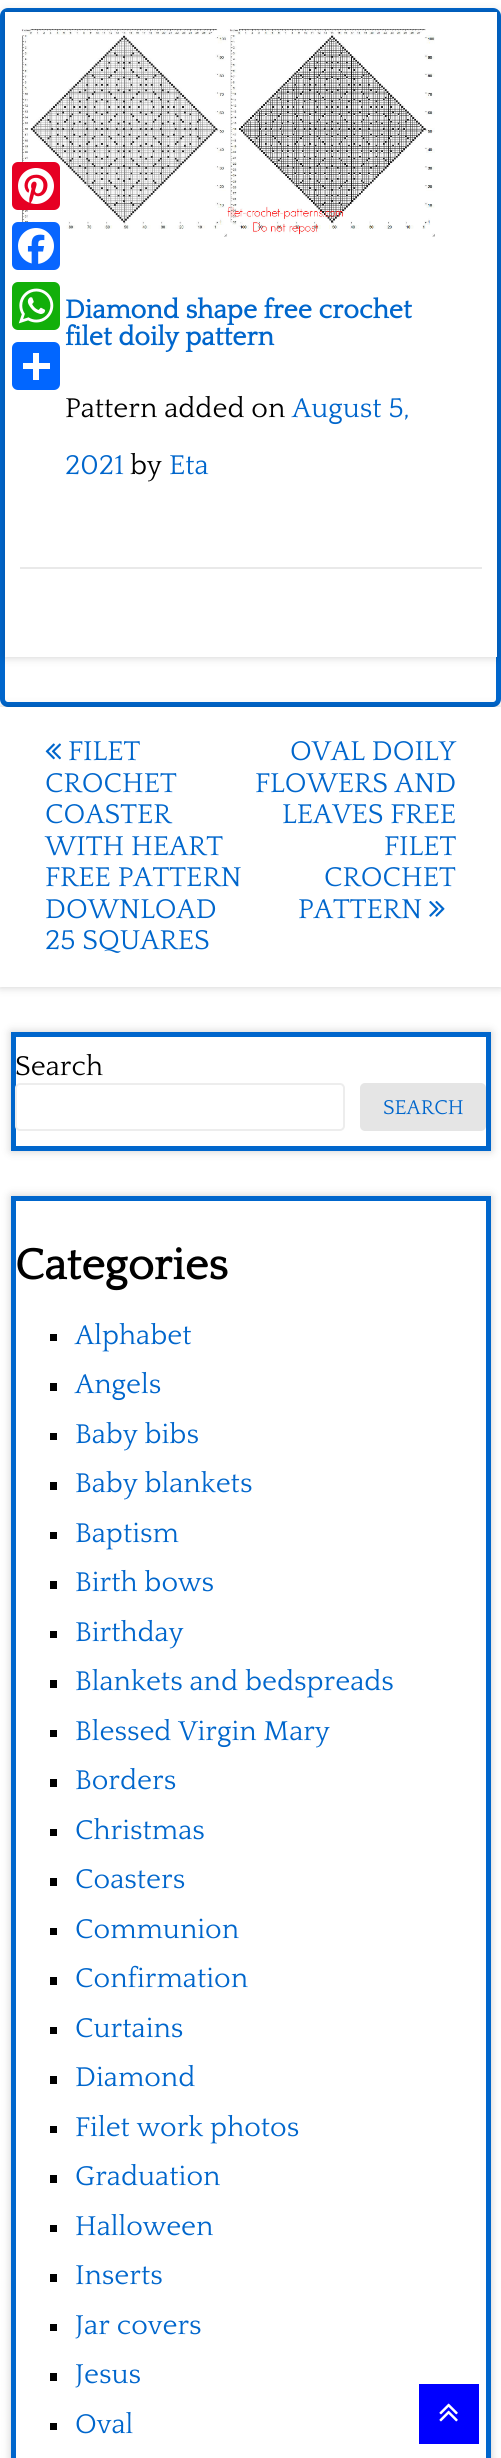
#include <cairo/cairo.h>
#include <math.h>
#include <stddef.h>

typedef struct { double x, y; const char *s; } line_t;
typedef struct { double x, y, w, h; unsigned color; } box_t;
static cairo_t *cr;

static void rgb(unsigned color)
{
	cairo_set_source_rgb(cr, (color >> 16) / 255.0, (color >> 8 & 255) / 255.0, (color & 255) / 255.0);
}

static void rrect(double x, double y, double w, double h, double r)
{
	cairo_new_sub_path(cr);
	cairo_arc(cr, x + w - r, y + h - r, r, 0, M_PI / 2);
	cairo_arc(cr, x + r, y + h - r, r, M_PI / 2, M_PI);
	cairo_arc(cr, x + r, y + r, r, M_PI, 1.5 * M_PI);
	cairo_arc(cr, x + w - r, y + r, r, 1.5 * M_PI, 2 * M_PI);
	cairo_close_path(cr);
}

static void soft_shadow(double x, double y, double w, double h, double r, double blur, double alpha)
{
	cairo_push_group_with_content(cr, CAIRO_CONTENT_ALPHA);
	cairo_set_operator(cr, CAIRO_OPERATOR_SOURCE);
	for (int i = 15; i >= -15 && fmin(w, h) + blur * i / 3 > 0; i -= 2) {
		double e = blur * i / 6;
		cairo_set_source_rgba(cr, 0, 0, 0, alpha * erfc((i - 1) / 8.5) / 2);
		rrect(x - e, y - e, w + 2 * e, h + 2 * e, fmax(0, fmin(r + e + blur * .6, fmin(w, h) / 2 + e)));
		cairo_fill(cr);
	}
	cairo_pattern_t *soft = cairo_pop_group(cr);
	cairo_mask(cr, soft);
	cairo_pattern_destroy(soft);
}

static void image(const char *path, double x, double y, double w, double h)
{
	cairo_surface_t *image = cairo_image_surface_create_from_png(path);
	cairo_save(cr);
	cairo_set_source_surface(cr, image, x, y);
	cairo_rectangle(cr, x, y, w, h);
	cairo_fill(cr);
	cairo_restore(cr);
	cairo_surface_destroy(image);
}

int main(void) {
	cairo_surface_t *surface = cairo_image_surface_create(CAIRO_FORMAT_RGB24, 501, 2458);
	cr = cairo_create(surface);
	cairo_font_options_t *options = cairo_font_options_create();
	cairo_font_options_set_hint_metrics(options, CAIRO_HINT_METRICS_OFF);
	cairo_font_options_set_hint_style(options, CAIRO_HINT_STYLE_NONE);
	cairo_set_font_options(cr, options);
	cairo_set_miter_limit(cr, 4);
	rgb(0xffffff);
	cairo_paint(cr);
	rrect(2.5, 10.5, 496, 694, 5.5);
	rgb(0x0066cc);
	cairo_set_line_width(cr, 5);
	cairo_stroke(cr);
	rgb(0x000000);
	soft_shadow(5, 12, 492, 645, 0, 4.5, 0.2);
	rgb(0xffffff);
	cairo_rectangle(cr, 5, 12, 492, 645);
	cairo_fill(cr);
	image("img/4.png", 21, 29, 414, 208);
	rgb(0xe60023);
	rrect(12, 162, 48, 48, 6);
	cairo_fill(cr);
	image("img/1.png", 18, 168, 36, 36);
	rgb(0x0866ff);
	rrect(12, 222, 48, 48, 6);
	cairo_fill(cr);
	image("img/2.png", 18, 228, 36, 36);
	rgb(0x12af0a);
	rrect(12, 282, 48, 48, 6);
	cairo_fill(cr);
	image("img/3.png", 18, 288, 36, 36);
	rgb(0x0166ff);
	rrect(12, 342, 48, 48, 6);
	cairo_fill(cr);
	{
		static const box_t items[] = {
			{33, 353, 6, 27, 0xffffff},
			{23, 363, 27, 6, 0xffffff},
			{20, 567, 462, 2, 0xe9e9e9},
		};
		for (size_t i = 0; i < sizeof items / sizeof *items; i++) {
			rgb(items[i].color);
			cairo_rectangle(cr, items[i].x, items[i].y, items[i].w, items[i].h);
			cairo_fill(cr);
		}
	}
	cairo_save(cr);
	cairo_set_fill_rule(cr, CAIRO_FILL_RULE_EVEN_ODD);
	cairo_new_path(cr);
	cairo_move_to(cr, 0, 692);
	cairo_line_to(cr, 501, 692);
	cairo_line_to(cr, 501, 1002);
	cairo_line_to(cr, 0, 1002);
	cairo_close_path(cr);
	cairo_move_to(cr, 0, 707);
	cairo_line_to(cr, 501, 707);
	cairo_line_to(cr, 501, 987);
	cairo_line_to(cr, 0, 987);
	cairo_close_path(cr);
	cairo_clip(cr);
	rgb(0x000000);
	soft_shadow(0, 707, 501, 280, 0, 4.5, 0.2);
	cairo_restore(cr);
	image("img/5.png", 45, 743, 16, 17);
	image("img/6.png", 429, 901, 16, 16);
	rgb(0x000000);
	soft_shadow(11, 1032, 480, 119, 0, 4.5, 0.2);
	rgb(0xffffff);
	cairo_rectangle(cr, 13.5, 1034.5, 475, 114);
	cairo_fill_preserve(cr);
	rgb(0x0066cc);
	cairo_stroke(cr);
	rgb(0xffffff);
	rrect(16, 1084, 328, 46, 4);
	cairo_fill_preserve(cr);
	rgb(0xededed);
	cairo_set_line_width(cr, 2);
	cairo_stroke(cr);
	rgb(0xe5e5e5);
	rrect(360, 1083, 126, 48, 5);
	cairo_fill(cr);
	rgb(0x000000);
	soft_shadow(11, 1196, 480, 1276, 0, 4.5, 0.2);
	rgb(0xffffff);
	cairo_rectangle(cr, 13.5, 1198.5, 475, 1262);
	cairo_fill_preserve(cr);
	rgb(0x0066cc);
	cairo_set_line_width(cr, 5);
	cairo_stroke(cr);
	{
		static const box_t items[] = {
			{50, 1334, 7, 7, 0x000000},
			{50, 1383, 7, 8, 0x000000},
			{50, 1433, 7, 7, 0x000000},
			{50, 1482, 7, 8, 0x000000},
			{50, 1532, 7, 7, 0x000000},
			{50, 1581, 7, 8, 0x000000},
			{50, 1631, 7, 7, 0x000000},
			{50, 1680, 7, 8, 0x000000},
			{50, 1730, 7, 7, 0x000000},
			{50, 1779, 7, 8, 0x000000},
			{50, 1829, 7, 7, 0x000000},
			{50, 1878, 7, 8, 0x000000},
			{50, 1928, 7, 7, 0x000000},
			{50, 1977, 7, 8, 0x000000},
			{50, 2027, 7, 7, 0x000000},
			{50, 2076, 7, 8, 0x000000},
			{50, 2126, 7, 7, 0x000000},
			{50, 2175, 7, 8, 0x000000},
			{50, 2225, 7, 7, 0x000000},
			{50, 2274, 7, 8, 0x000000},
			{50, 2324, 7, 7, 0x000000},
			{50, 2373, 7, 8, 0x000000},
			{50, 2423, 7, 7, 0x000000},
			{419, 2384, 60, 60, 0x0000ff},
		};
		for (size_t i = 0; i < sizeof items / sizeof *items; i++) {
			rgb(items[i].color);
			cairo_rectangle(cr, items[i].x, items[i].y, items[i].w, items[i].h);
			cairo_fill(cr);
		}
	}
	image("img/7.png", 439, 2403, 19, 19);
	cairo_select_font_face(cr, "Quattrocento", CAIRO_FONT_SLANT_NORMAL, CAIRO_FONT_WEIGHT_BOLD);
	cairo_set_font_size(cr, 27);
	rgb(0x0066cc);
	cairo_move_to(cr, 65, 318);
	cairo_show_text(cr, "Diamond shape free crochet");
	cairo_move_to(cr, 65, 345);
	cairo_show_text(cr, "filet doily pattern");
	cairo_select_font_face(cr, "Quattrocento", CAIRO_FONT_SLANT_NORMAL, CAIRO_FONT_WEIGHT_NORMAL);
	cairo_set_font_size(cr, 28.5);
	rgb(0x000000);
	cairo_move_to(cr, 65, 417);
	cairo_show_text(cr, "Pattern added on");
	rgb(0x0066cc);
	cairo_move_to(cr, 292, 417);
	cairo_show_text(cr, "August 5,");
	cairo_move_to(cr, 65, 474);
	cairo_show_text(cr, "2021");
	rgb(0x000000);
	cairo_move_to(cr, 130, 474);
	cairo_show_text(cr, "by");
	rgb(0x0066cc);
	{
		static const line_t items[] = {
			{169, 474, "Eta"},
			{68, 760, "FILET"},
			{45, 792, "CROCHET"},
			{45, 823, "COASTER"},
			{45, 855, "WITH HEART"},
			{45, 886, "FREE PATTERN"},
			{45, 918, "DOWNLOAD"},
			{45, 949, "25 SQUARES"},
			{290, 760, "OVAL DOILY"},
			{255, 792, "FLOWERS AND"},
			{282, 823, "LEAVES FREE"},
			{384, 855, "FILET"},
			{324, 886, "CROCHET"},
			{298, 918, "PATTERN"},
		};
		for (size_t i = 0; i < sizeof items / sizeof *items; i++) {
			cairo_move_to(cr, items[i].x, items[i].y);
			cairo_show_text(cr, items[i].s);
		}
	}
	rgb(0x000000);
	cairo_move_to(cr, 15, 1075);
	cairo_show_text(cr, "Search");
	cairo_set_font_size(cr, 21);
	rgb(0x0066cc);
	cairo_move_to(cr, 383, 1114);
	cairo_show_text(cr, "SEARCH");
	cairo_select_font_face(cr, "Quattrocento", CAIRO_FONT_SLANT_NORMAL, CAIRO_FONT_WEIGHT_BOLD);
	cairo_set_font_size(cr, 45);
	rgb(0x000000);
	cairo_move_to(cr, 15, 1279);
	cairo_show_text(cr, "Categories");
	cairo_select_font_face(cr, "Quattrocento", CAIRO_FONT_SLANT_NORMAL, CAIRO_FONT_WEIGHT_NORMAL);
	cairo_set_font_size(cr, 28.5);
	rgb(0x0066cc);
	{
		static const line_t items[] = {
			{75, 1344, "Alphabet"},
			{75, 1393, "Angels"},
			{75, 1443, "Baby bibs"},
			{75, 1492, "Baby blankets"},
			{75, 1542, "Baptism"},
			{75, 1591, "Birth bows"},
			{75, 1641, "Birthday"},
			{75, 1690, "Blankets and bedspreads"},
			{75, 1740, "Blessed Virgin Mary"},
			{75, 1789, "Borders"},
			{75, 1839, "Christmas"},
			{75, 1888, "Coasters"},
			{75, 1938, "Communion"},
			{75, 1987, "Confirmation"},
			{75, 2037, "Curtains"},
			{75, 2086, "Diamond"},
			{75, 2136, "Filet work photos"},
			{75, 2185, "Graduation"},
			{75, 2235, "Halloween"},
			{75, 2284, "Inserts"},
			{75, 2334, "Jar covers"},
			{75, 2383, "Jesus"},
			{75, 2433, "Oval"},
		};
		for (size_t i = 0; i < sizeof items / sizeof *items; i++) {
			cairo_move_to(cr, items[i].x, items[i].y);
			cairo_show_text(cr, items[i].s);
		}
	}
	cairo_surface_write_to_png(surface, "page.png");
	cairo_font_options_destroy(options);
	cairo_destroy(cr);
	cairo_surface_destroy(surface);
	return 0;
}
